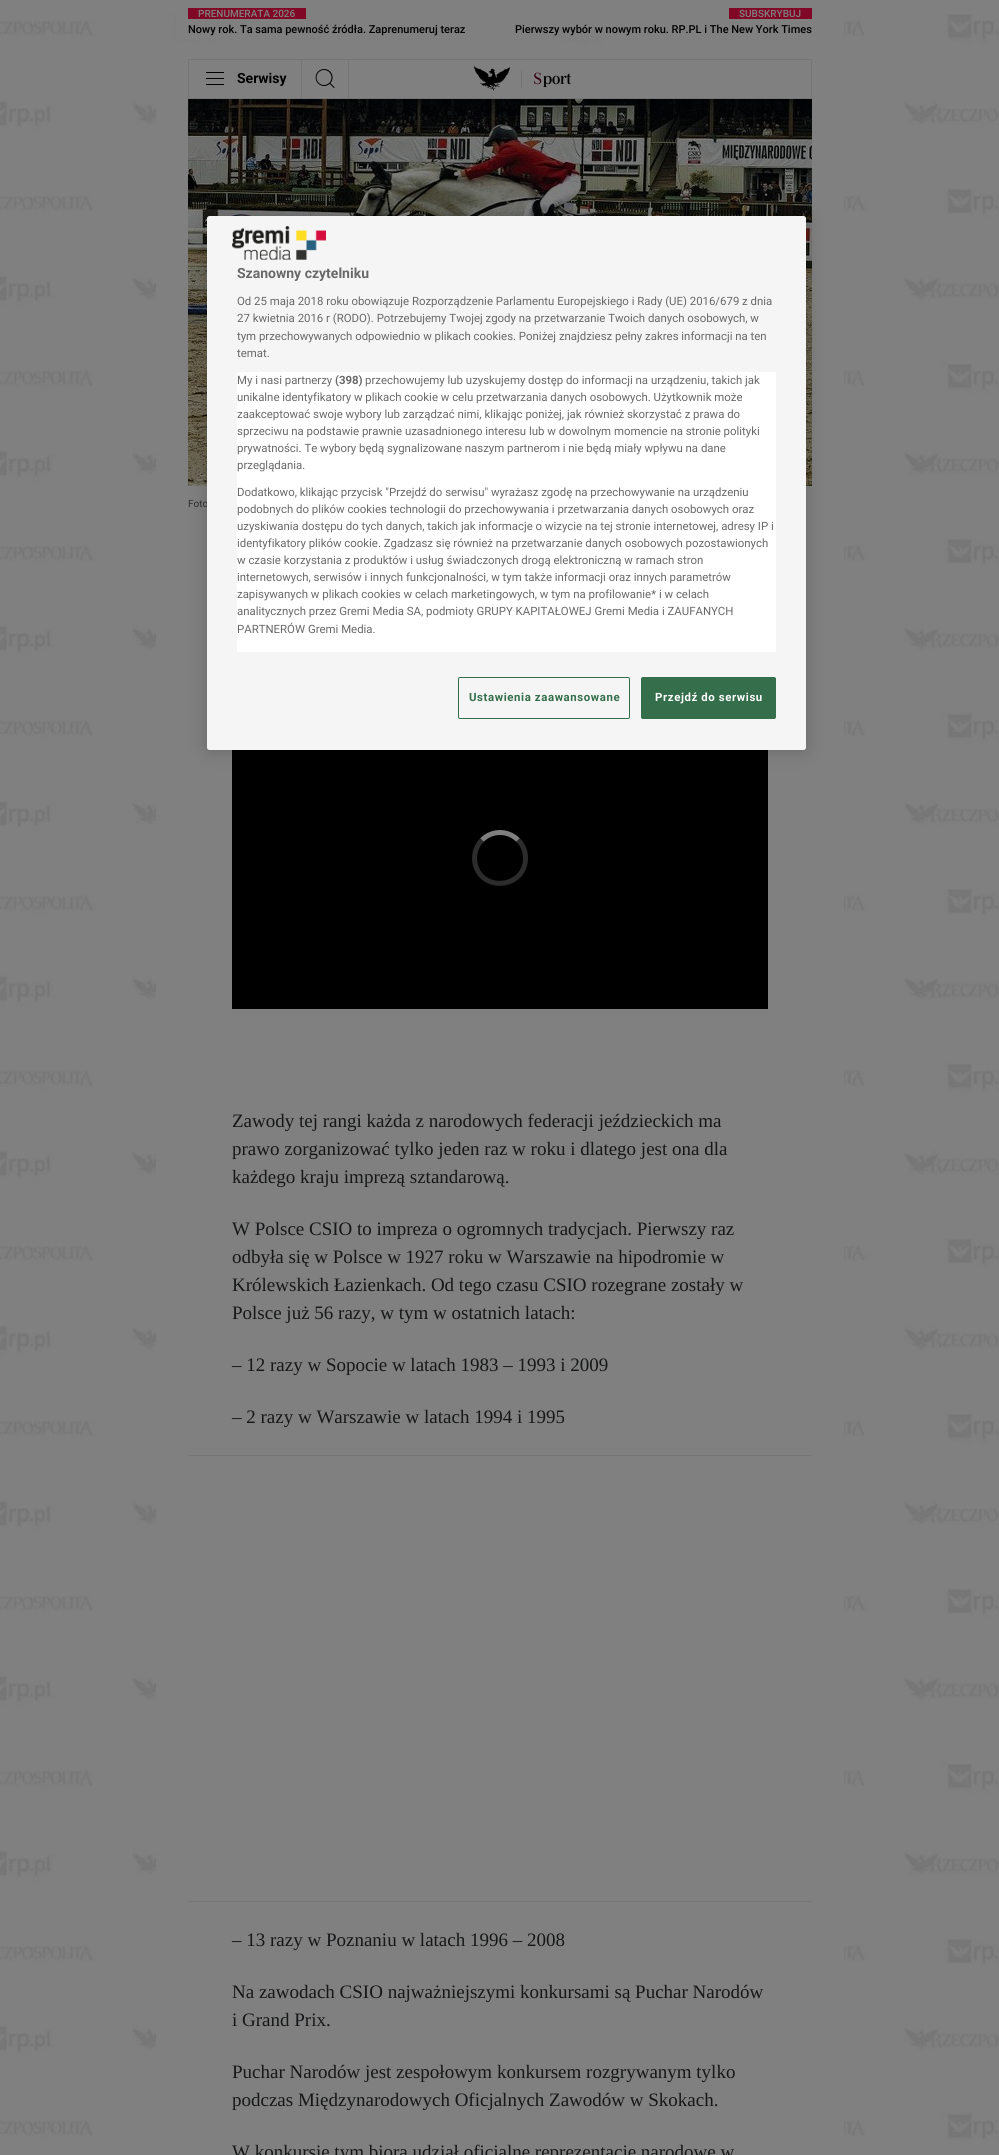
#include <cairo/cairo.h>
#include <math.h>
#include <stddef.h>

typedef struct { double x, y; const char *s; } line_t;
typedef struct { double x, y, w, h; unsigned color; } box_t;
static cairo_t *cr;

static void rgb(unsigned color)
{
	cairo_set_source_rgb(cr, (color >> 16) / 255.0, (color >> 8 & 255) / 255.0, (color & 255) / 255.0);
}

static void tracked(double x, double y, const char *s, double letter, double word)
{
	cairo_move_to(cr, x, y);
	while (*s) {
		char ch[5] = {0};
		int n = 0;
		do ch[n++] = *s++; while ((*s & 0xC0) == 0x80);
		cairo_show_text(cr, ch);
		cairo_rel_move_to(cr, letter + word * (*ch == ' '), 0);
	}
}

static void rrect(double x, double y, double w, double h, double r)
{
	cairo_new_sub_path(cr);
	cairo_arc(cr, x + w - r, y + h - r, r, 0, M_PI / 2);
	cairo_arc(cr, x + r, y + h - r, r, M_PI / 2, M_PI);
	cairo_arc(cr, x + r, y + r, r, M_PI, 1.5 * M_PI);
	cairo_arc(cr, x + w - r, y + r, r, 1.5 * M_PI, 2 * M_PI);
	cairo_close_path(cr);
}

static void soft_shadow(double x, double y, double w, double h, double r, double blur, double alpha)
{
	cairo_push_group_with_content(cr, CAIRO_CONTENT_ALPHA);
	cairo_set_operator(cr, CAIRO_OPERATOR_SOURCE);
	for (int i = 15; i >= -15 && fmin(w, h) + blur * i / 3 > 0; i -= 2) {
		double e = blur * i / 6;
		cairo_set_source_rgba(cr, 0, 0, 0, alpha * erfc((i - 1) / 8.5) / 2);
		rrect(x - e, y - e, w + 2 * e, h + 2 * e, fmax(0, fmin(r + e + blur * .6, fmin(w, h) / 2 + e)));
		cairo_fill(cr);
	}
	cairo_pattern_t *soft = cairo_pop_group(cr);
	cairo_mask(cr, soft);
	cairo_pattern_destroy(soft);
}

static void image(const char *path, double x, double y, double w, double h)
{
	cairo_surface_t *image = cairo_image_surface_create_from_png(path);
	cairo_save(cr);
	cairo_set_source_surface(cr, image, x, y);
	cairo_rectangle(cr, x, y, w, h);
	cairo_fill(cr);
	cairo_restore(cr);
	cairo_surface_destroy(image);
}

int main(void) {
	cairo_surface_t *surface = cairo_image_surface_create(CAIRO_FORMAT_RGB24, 999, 2155);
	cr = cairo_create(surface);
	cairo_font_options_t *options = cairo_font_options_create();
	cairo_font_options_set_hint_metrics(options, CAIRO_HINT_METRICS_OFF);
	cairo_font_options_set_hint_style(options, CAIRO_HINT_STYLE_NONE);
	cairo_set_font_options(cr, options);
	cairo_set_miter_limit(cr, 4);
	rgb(0x808080);
	cairo_paint(cr);
	image("img/3.png", 0, 14, 999, 2126);
	{
		static const box_t items[] = {
			{176, 14, 668, 26, 0x808080},
			{188, 8, 118, 11, 0x800725},
			{729, 8, 83, 11, 0x800725},
			{188, 59, 624, 1, 0x767676},
			{188, 98, 624, 1, 0x767676},
			{811, 60, 1, 38, 0x767676},
			{301, 60, 1, 38, 0x767676},
			{188, 60, 1, 38, 0x767676},
			{206, 72, 18, 1, 0x000000},
			{206, 78, 18, 1, 0x000000},
			{206, 84, 18, 1, 0x000000},
			{348, 60, 1, 38, 0x767676},
		};
		for (size_t i = 0; i < sizeof items / sizeof *items; i++) {
			rgb(items[i].color);
			cairo_rectangle(cr, items[i].x, items[i].y, items[i].w, items[i].h);
			cairo_fill(cr);
		}
	}
	image("img/1.png", 315, 69, 20, 19);
	image("img/2.png", 474, 66, 36, 25);
	rgb(0x727272);
	cairo_rectangle(cr, 521, 71, 1, 17);
	cairo_fill(cr);
	rgb(0x808080);
	cairo_rectangle(cr, 156, 101, 688, 2039);
	cairo_fill(cr);
	image("img/4.png", 188, 99, 624, 387);
	rgb(0x000000);
	cairo_rectangle(cr, 232, 750, 536, 259);
	cairo_fill(cr);
	cairo_new_path(cr);
	cairo_move_to(cr, 482, 840);
	cairo_curve_to(cr, 492, 830, 508, 830, 518, 840);
	rgb(0x808080);
	cairo_set_line_width(cr, 5);
	cairo_stroke(cr);
	cairo_new_path(cr);
	cairo_move_to(cr, 518, 840);
	cairo_curve_to(cr, 523, 844.5, 525.5, 851.5, 525.5, 858);
	cairo_curve_to(cr, 525.5, 888.5, 481, 893, 475, 863);
	cairo_curve_to(cr, 473.5, 854.5, 476, 846, 482, 840);
	cairo_set_source_rgba(cr, 0.502, 0.502, 0.502, 0.35);
	cairo_stroke(cr);
	rgb(0x767676);
	cairo_rectangle(cr, 188, 1455, 624, 1);
	cairo_fill(cr);
	cairo_rectangle(cr, 188, 1901, 624, 1);
	cairo_fill(cr);
	rgb(0x000000);
	soft_shadow(207, 216, 599, 534, 2.5, 9, 0.2);
	cairo_select_font_face(cr, "Roboto Medium", CAIRO_FONT_SLANT_NORMAL, CAIRO_FONT_WEIGHT_NORMAL);
	cairo_set_font_size(cr, 10);
	rgb(0x808080);
	cairo_move_to(cr, 198, 17);
	cairo_show_text(cr, "PRENUMERATA 2026");
	cairo_set_font_size(cr, 11);
	rgb(0x000000);
	cairo_move_to(cr, 188, 33);
	cairo_show_text(cr, "Nowy rok. Ta sama pewność źródła. Zaprenumeruj teraz");
	cairo_set_font_size(cr, 10);
	rgb(0x808080);
	cairo_move_to(cr, 739, 17);
	cairo_show_text(cr, "SUBSKRYBUJ");
	cairo_set_font_size(cr, 11);
	rgb(0x000000);
	cairo_move_to(cr, 515, 33);
	cairo_show_text(cr, "Pierwszy wybór w nowym roku. RP.PL i The New York Times");
	cairo_select_font_face(cr, "Roboto", CAIRO_FONT_SLANT_NORMAL, CAIRO_FONT_WEIGHT_BOLD);
	cairo_set_font_size(cr, 14);
	cairo_move_to(cr, 237, 83);
	cairo_show_text(cr, "Serwisy");
	cairo_select_font_face(cr, "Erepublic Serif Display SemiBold", CAIRO_FONT_SLANT_NORMAL, CAIRO_FONT_WEIGHT_NORMAL);
	cairo_set_font_size(cr, 16);
	rgb(0x3b0317);
	cairo_move_to(cr, 533, 84);
	cairo_show_text(cr, "S");
	rgb(0x000000);
	cairo_move_to(cr, 543, 84);
	cairo_show_text(cr, "port");
	cairo_select_font_face(cr, "Roboto", CAIRO_FONT_SLANT_NORMAL, CAIRO_FONT_WEIGHT_NORMAL);
	cairo_set_font_size(cr, 10);
	rgb(0x2a2c2c);
	cairo_move_to(cr, 188, 507);
	cairo_show_text(cr, "Foto");
	cairo_select_font_face(cr, "Liberation Serif", CAIRO_FONT_SLANT_NORMAL, CAIRO_FONT_WEIGHT_NORMAL);
	cairo_set_font_size(cr, 19);
	rgb(0x161718);
	{
		static const line_t items[] = {
			{232, 1127, "Zawody tej rangi każda z narodowych federacji jeździeckich ma"},
			{232, 1155, "prawo zorganizować tylko jeden raz w roku i dlatego jest ona dla"},
			{232, 1183, "każdego kraju imprezą sztandarową."},
			{232, 1235, "W Polsce CSIO to impreza o ogromnych tradycjach. Pierwszy raz"},
			{232, 1263, "odbyła się w Polsce w 1927 roku w Warszawie na hipodromie w"},
			{232, 1291, "Królewskich Łazienkach. Od tego czasu CSIO rozegrane zostały w"},
			{232, 1319, "Polsce już 56 razy, w tym w ostatnich latach:"},
			{232, 1371, "– 12 razy w Sopocie w latach 1983 – 1993 i 2009"},
			{232, 1423, "– 2 razy w Warszawie w latach 1994 i 1995"},
			{232, 1946, "– 13 razy w Poznaniu w latach 1996 – 2008"},
			{232, 1998, "Na zawodach CSIO najważniejszymi konkursami są Puchar Narodów"},
			{232, 2026, "i Grand Prix."},
			{232, 2078, "Puchar Narodów jest zespołowym konkursem rozgrywanym tylko"},
			{232, 2106, "podczas Międzynarodowych Oficjalnych Zawodów w Skokach."},
			{232, 2158, "W konkursie tym biorą udział oficjalne reprezentacje narodowe w"},
		};
		for (size_t i = 0; i < sizeof items / sizeof *items; i++) {
			cairo_move_to(cr, items[i].x, items[i].y);
			cairo_show_text(cr, items[i].s);
		}
	}
	rgb(0xf5f5f5);
	rrect(207, 216, 599, 534, 2.5);
	cairo_fill(cr);
	image("img/5.png", 232, 226, 94, 34);
	cairo_select_font_face(cr, "Roboto", CAIRO_FONT_SLANT_NORMAL, CAIRO_FONT_WEIGHT_BOLD);
	cairo_set_font_size(cr, 14);
	rgb(0x696969);
	cairo_move_to(cr, 237, 278);
	cairo_show_text(cr, "Szanowny czytelniku");
	cairo_select_font_face(cr, "Roboto", CAIRO_FONT_SLANT_NORMAL, CAIRO_FONT_WEIGHT_NORMAL);
	cairo_set_font_size(cr, 11.4);
	{
		static const line_t items[] = {
			{237, 305, "Od 25 maja 2018 roku obowiązuje Rozporządzenie Parlamentu Europejskiego i Rady (UE) 2016/679 z dnia"},
			{237, 322, "27 kwietnia 2016 r (RODO). Potrzebujemy Twojej zgody na przetwarzanie Twoich danych osobowych, w"},
			{237, 340, "tym przechowywanych odpowiednio w plikach cookies. Poniżej znajdziesz pełny zakres informacji na ten"},
			{237, 357, "temat."},
		};
		for (size_t i = 0; i < sizeof items / sizeof *items; i++) {
			cairo_move_to(cr, items[i].x, items[i].y);
			cairo_show_text(cr, items[i].s);
		}
	}
	rgb(0xffffff);
	cairo_rectangle(cr, 237, 372, 539, 280);
	cairo_fill(cr);
	rgb(0x696969);
	cairo_move_to(cr, 237, 384);
	cairo_show_text(cr, "My i nasi partnerzy");
	cairo_select_font_face(cr, "Roboto", CAIRO_FONT_SLANT_NORMAL, CAIRO_FONT_WEIGHT_BOLD);
	cairo_move_to(cr, 335, 384);
	cairo_show_text(cr, "(398)");
	cairo_select_font_face(cr, "Roboto", CAIRO_FONT_SLANT_NORMAL, CAIRO_FONT_WEIGHT_NORMAL);
	{
		static const line_t items[] = {
			{365, 384, "przechowujemy lub uzyskujemy dostęp do informacji na urządzeniu, takich jak"},
			{237, 401, "unikalne identyfikatory w plikach cookie w celu przetwarzania danych osobowych. Użytkownik może"},
			{237, 418, "zaakceptować swoje wybory lub zarządzać nimi, klikając poniżej, jak również skorzystać z prawa do"},
			{237, 435, "sprzeciwu na podstawie prawnie uzasadnionego interesu lub w dowolnym momencie na stronie polityki"},
			{237, 452, "prywatności. Te wybory będą sygnalizowane naszym partnerom i nie będą miały wpływu na dane"},
			{237, 469, "przeglądania."},
			{237, 496, "Dodatkowo, klikając przycisk \"Przejdź do serwisu\" wyrażasz zgodę na przechowywanie na urządzeniu"},
			{237, 513, "podobnych do plików cookies technologii do przechowywania i przetwarzania danych osobowych oraz"},
			{237, 530, "uzyskiwania dostępu do tych danych, takich jak informacje o wizycie na tej stronie internetowej, adresy IP i"},
			{237, 547, "identyfikatory plików cookie. Zgadzasz się również na przetwarzanie danych osobowych pozostawionych"},
			{237, 564, "w czasie korzystania z produktów i usług świadczonych drogą elektroniczną w ramach stron"},
			{237, 581, "internetowych, serwisów i innych funkcjonalności, w tym także informacji oraz innych parametrów"},
			{237, 598, "zapisywanych w plikach cookies w celach marketingowych, w tym na profilowanie* i w celach"},
			{237, 615, "analitycznych przez Gremi Media SA, podmioty GRUPY KAPITAŁOWEJ Gremi Media i ZAUFANYCH"},
			{237, 633, "PARTNERÓW Gremi Media."},
		};
		for (size_t i = 0; i < sizeof items / sizeof *items; i++) {
			cairo_move_to(cr, items[i].x, items[i].y);
			cairo_show_text(cr, items[i].s);
		}
	}
	rrect(458.5, 677.5, 171, 41, 1.5);
	rgb(0x346e4a);
	cairo_set_line_width(cr, 1);
	cairo_stroke(cr);
	cairo_select_font_face(cr, "Roboto", CAIRO_FONT_SLANT_NORMAL, CAIRO_FONT_WEIGHT_BOLD);
	tracked(469, 701, "Ustawienia zaawansowane", 0.6, 0);
	rrect(641.5, 677.5, 134, 41, 1.5);
	cairo_fill_preserve(cr);
	cairo_stroke(cr);
	rgb(0xffffff);
	tracked(655, 701, "Przejdź do serwisu", 0.6, 0);
	cairo_surface_write_to_png(surface, "page.png");
	cairo_font_options_destroy(options);
	cairo_destroy(cr);
	cairo_surface_destroy(surface);
	return 0;
}
